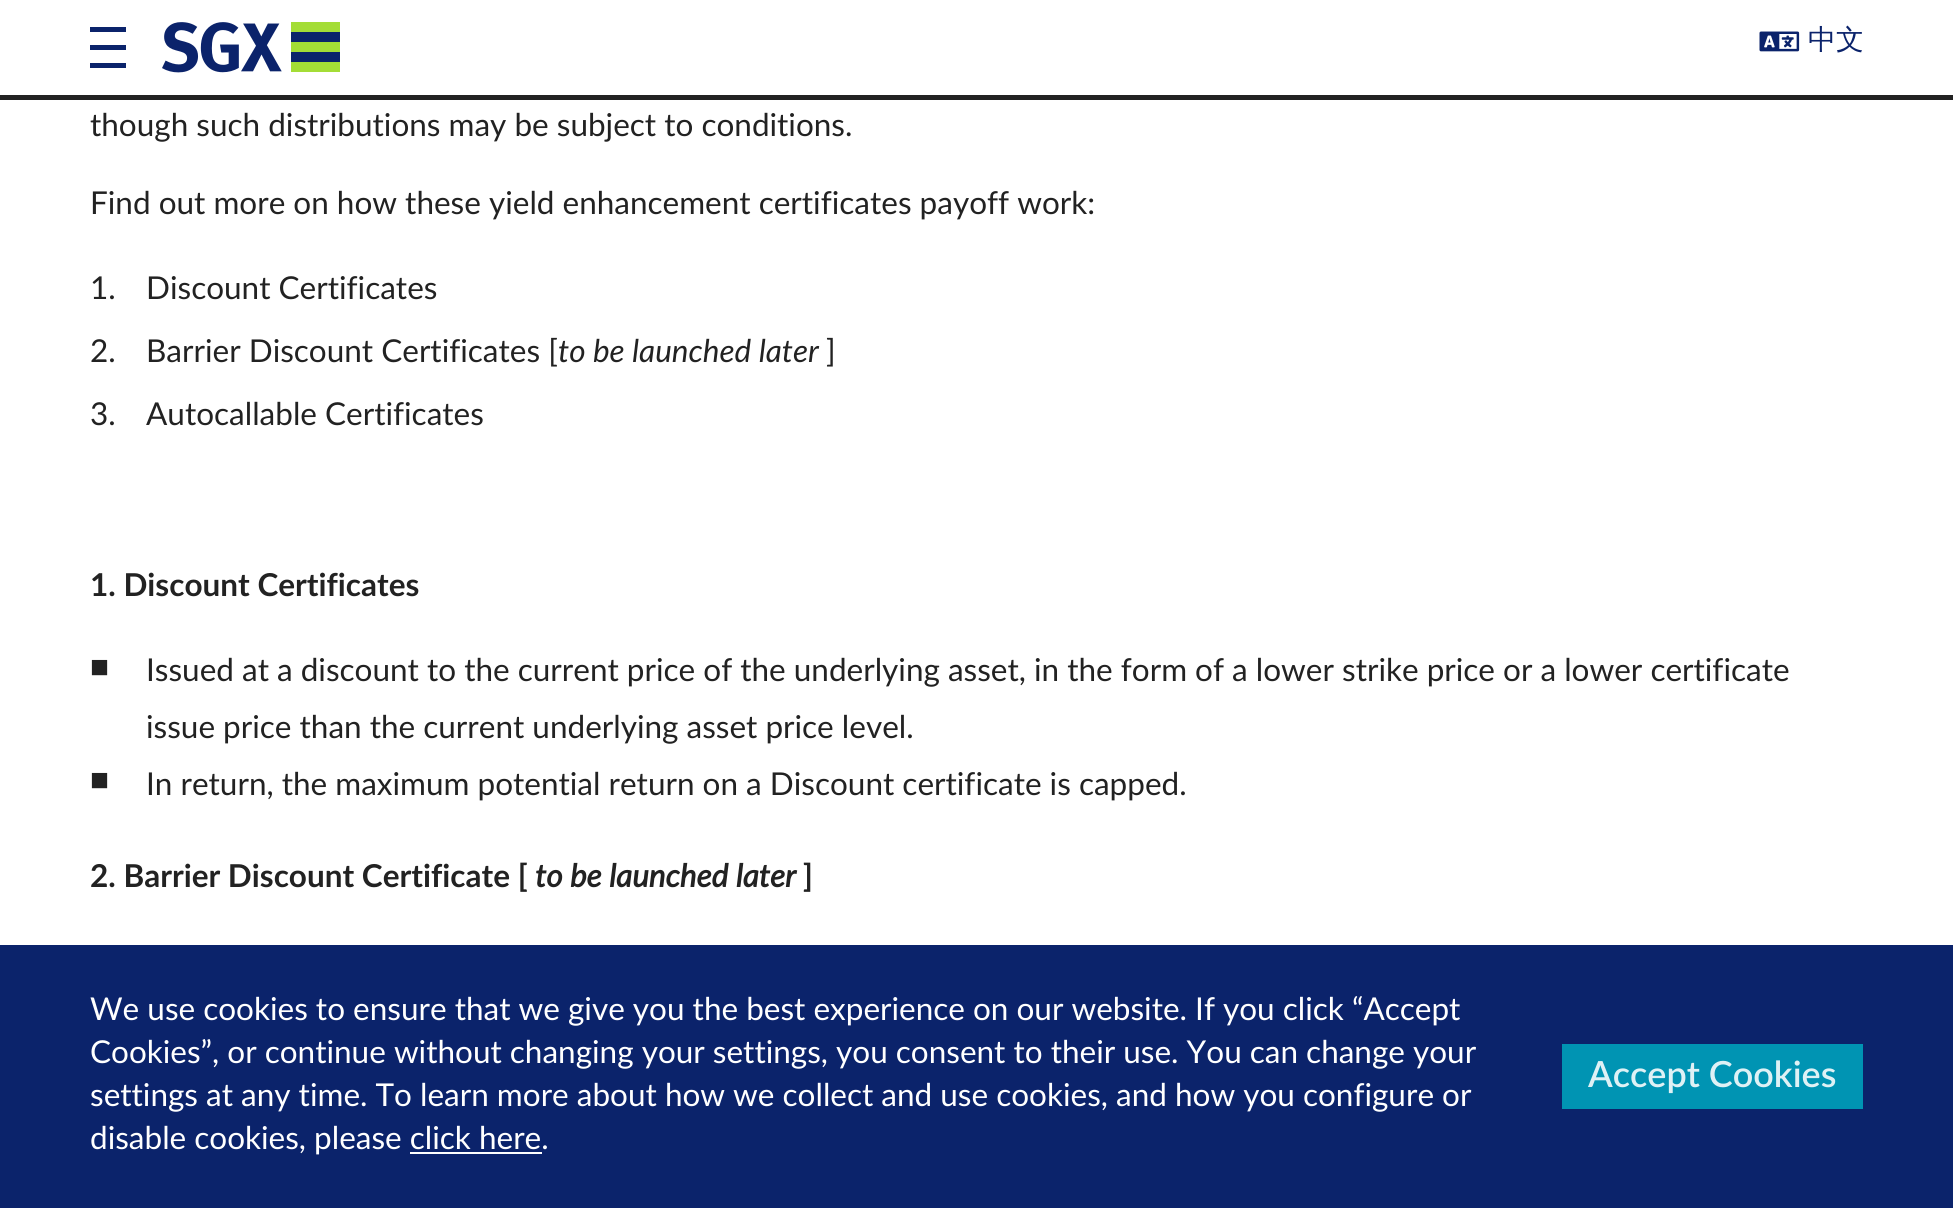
#include <cairo/cairo.h>
#include <math.h>
#include <stddef.h>

typedef struct { double x, y; const char *s; } line_t;
typedef struct { double x, y, w, h; unsigned color; } box_t;
static cairo_t *cr;

static void rgb(unsigned color)
{
	cairo_set_source_rgb(cr, (color >> 16) / 255.0, (color >> 8 & 255) / 255.0, (color & 255) / 255.0);
}

static void image(const char *path, double x, double y, double w, double h)
{
	cairo_surface_t *image = cairo_image_surface_create_from_png(path);
	cairo_save(cr);
	cairo_set_source_surface(cr, image, x, y);
	cairo_rectangle(cr, x, y, w, h);
	cairo_fill(cr);
	cairo_restore(cr);
	cairo_surface_destroy(image);
}

int main(void) {
	cairo_surface_t *surface = cairo_image_surface_create(CAIRO_FORMAT_RGB24, 1953, 1208);
	cr = cairo_create(surface);
	cairo_font_options_t *options = cairo_font_options_create();
	cairo_font_options_set_hint_metrics(options, CAIRO_HINT_METRICS_OFF);
	cairo_font_options_set_hint_style(options, CAIRO_HINT_STYLE_NONE);
	cairo_set_font_options(cr, options);
	cairo_set_miter_limit(cr, 4);
	rgb(0xffffff);
	cairo_paint(cr);
	{
		static const box_t items[] = {
			{0, 95, 1953, 5, 0x222222},
			{90, 45, 36, 5, 0x0b236b},
			{90, 27, 36, 5, 0x0b236b},
			{90, 63, 36, 5, 0x0b236b},
		};
		for (size_t i = 0; i < sizeof items / sizeof *items; i++) {
			rgb(items[i].color);
			cairo_rectangle(cr, items[i].x, items[i].y, items[i].w, items[i].h);
			cairo_fill(cr);
		}
	}
	image("img/1.png", 162, 22, 178, 51);
	image("img/2.png", 1759, 31, 41, 21);
	{
		static const box_t items[] = {
			{0, 945, 1953, 263, 0x0b236b},
			{410, 1152, 132, 2, 0xffffff},
			{1562, 1044, 301, 65, 0x0094b3},
		};
		for (size_t i = 0; i < sizeof items / sizeof *items; i++) {
			rgb(items[i].color);
			cairo_rectangle(cr, items[i].x, items[i].y, items[i].w, items[i].h);
			cairo_fill(cr);
		}
	}
	cairo_select_font_face(cr, "WenQuanYi Zen Hei Medium", CAIRO_FONT_SLANT_NORMAL, CAIRO_FONT_WEIGHT_NORMAL);
	cairo_set_font_size(cr, 28);
	rgb(0x0b236b);
	cairo_move_to(cr, 1808, 49);
	cairo_show_text(cr, "中文");
	cairo_select_font_face(cr, "Lato", CAIRO_FONT_SLANT_NORMAL, CAIRO_FONT_WEIGHT_NORMAL);
	cairo_set_font_size(cr, 31.5);
	rgb(0x222222);
	{
		static const line_t items[] = {
			{90, 136, "though such distributions may be subject to conditions."},
			{90, 214, "Find out more on how these yield enhancement certificates payoff work:"},
			{90, 299, "1."},
			{146, 299, "Discount Certificates"},
			{90, 362, "2."},
			{146, 362, "Barrier Discount Certificates ["},
		};
		for (size_t i = 0; i < sizeof items / sizeof *items; i++) {
			cairo_move_to(cr, items[i].x, items[i].y);
			cairo_show_text(cr, items[i].s);
		}
	}
	cairo_select_font_face(cr, "Lato", CAIRO_FONT_SLANT_ITALIC, CAIRO_FONT_WEIGHT_NORMAL);
	cairo_move_to(cr, 558, 362);
	cairo_show_text(cr, "to be launched later");
	cairo_select_font_face(cr, "Lato", CAIRO_FONT_SLANT_NORMAL, CAIRO_FONT_WEIGHT_NORMAL);
	{
		static const line_t items[] = {
			{826, 362, "]"},
			{90, 425, "3."},
			{146, 425, "Autocallable Certificates"},
		};
		for (size_t i = 0; i < sizeof items / sizeof *items; i++) {
			cairo_move_to(cr, items[i].x, items[i].y);
			cairo_show_text(cr, items[i].s);
		}
	}
	cairo_select_font_face(cr, "Lato", CAIRO_FONT_SLANT_NORMAL, CAIRO_FONT_WEIGHT_BOLD);
	cairo_move_to(cr, 90, 596);
	cairo_show_text(cr, "1. Discount Certificates");
	cairo_select_font_face(cr, "Liberation Sans", CAIRO_FONT_SLANT_NORMAL, CAIRO_FONT_WEIGHT_NORMAL);
	cairo_move_to(cr, 90, 677);
	cairo_show_text(cr, "■");
	cairo_select_font_face(cr, "Lato", CAIRO_FONT_SLANT_NORMAL, CAIRO_FONT_WEIGHT_NORMAL);
	cairo_move_to(cr, 146, 681);
	cairo_show_text(cr, "Issued at a discount to the current price of the underlying asset, in the form of a lower strike price or a lower certificate");
	cairo_move_to(cr, 146, 738);
	cairo_show_text(cr, "issue price than the current underlying asset price level.");
	cairo_select_font_face(cr, "Liberation Sans", CAIRO_FONT_SLANT_NORMAL, CAIRO_FONT_WEIGHT_NORMAL);
	cairo_move_to(cr, 90, 790);
	cairo_show_text(cr, "■");
	cairo_select_font_face(cr, "Lato", CAIRO_FONT_SLANT_NORMAL, CAIRO_FONT_WEIGHT_NORMAL);
	cairo_move_to(cr, 146, 795);
	cairo_show_text(cr, "In return, the maximum potential return on a Discount certificate is capped.");
	cairo_select_font_face(cr, "Lato", CAIRO_FONT_SLANT_NORMAL, CAIRO_FONT_WEIGHT_BOLD);
	cairo_move_to(cr, 90, 887);
	cairo_show_text(cr, "2. Barrier Discount Certificate [");
	cairo_select_font_face(cr, "Lato", CAIRO_FONT_SLANT_ITALIC, CAIRO_FONT_WEIGHT_BOLD);
	cairo_move_to(cr, 535, 887);
	cairo_show_text(cr, "to be launched later");
	cairo_select_font_face(cr, "Lato", CAIRO_FONT_SLANT_NORMAL, CAIRO_FONT_WEIGHT_BOLD);
	cairo_move_to(cr, 803, 887);
	cairo_show_text(cr, "]");
	cairo_select_font_face(cr, "Lato", CAIRO_FONT_SLANT_NORMAL, CAIRO_FONT_WEIGHT_NORMAL);
	rgb(0xffffff);
	{
		static const line_t items[] = {
			{90, 1020, "We use cookies to ensure that we give you the best experience on our website. If you click “Accept"},
			{90, 1063, "Cookies”, or continue without changing your settings, you consent to their use. You can change your"},
			{90, 1106, "settings at any time. To learn more about how we collect and use cookies, and how you configure or"},
			{90, 1149, "disable cookies, please click here."},
		};
		for (size_t i = 0; i < sizeof items / sizeof *items; i++) {
			cairo_move_to(cr, items[i].x, items[i].y);
			cairo_show_text(cr, items[i].s);
		}
	}
	cairo_select_font_face(cr, "Lato SemiBold", CAIRO_FONT_SLANT_NORMAL, CAIRO_FONT_WEIGHT_NORMAL);
	cairo_set_font_size(cr, 36);
	rgb(0xdef1f5);
	cairo_move_to(cr, 1588, 1087);
	cairo_show_text(cr, "Accept Cookies");
	cairo_surface_write_to_png(surface, "page.png");
	cairo_font_options_destroy(options);
	cairo_destroy(cr);
	cairo_surface_destroy(surface);
	return 0;
}
